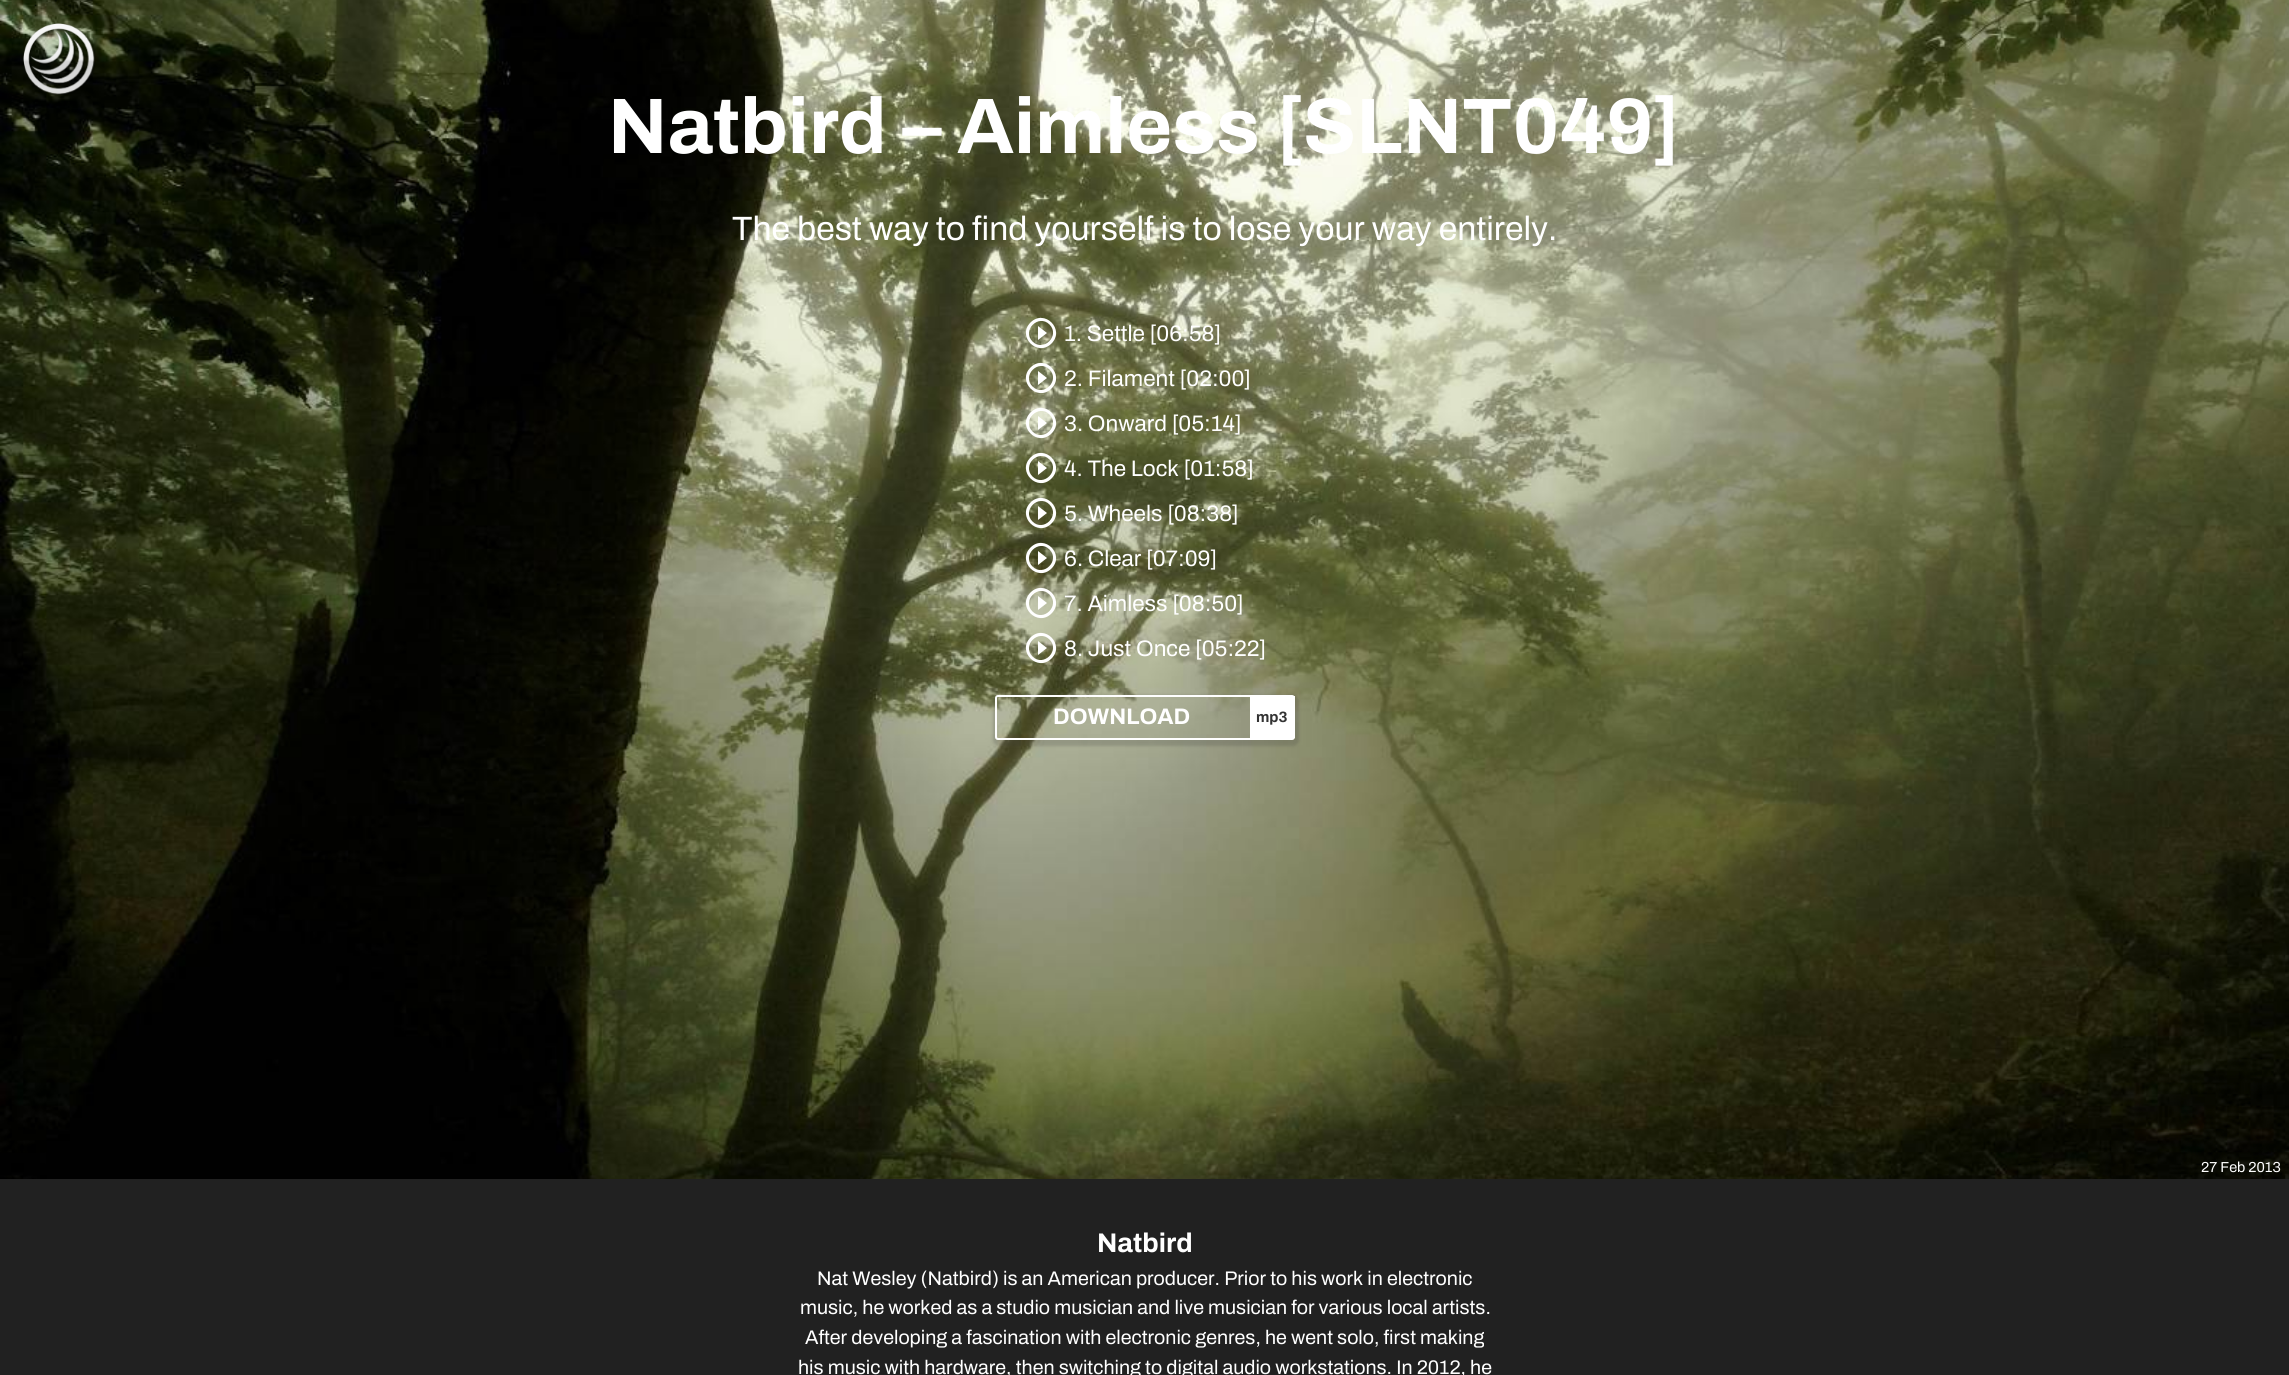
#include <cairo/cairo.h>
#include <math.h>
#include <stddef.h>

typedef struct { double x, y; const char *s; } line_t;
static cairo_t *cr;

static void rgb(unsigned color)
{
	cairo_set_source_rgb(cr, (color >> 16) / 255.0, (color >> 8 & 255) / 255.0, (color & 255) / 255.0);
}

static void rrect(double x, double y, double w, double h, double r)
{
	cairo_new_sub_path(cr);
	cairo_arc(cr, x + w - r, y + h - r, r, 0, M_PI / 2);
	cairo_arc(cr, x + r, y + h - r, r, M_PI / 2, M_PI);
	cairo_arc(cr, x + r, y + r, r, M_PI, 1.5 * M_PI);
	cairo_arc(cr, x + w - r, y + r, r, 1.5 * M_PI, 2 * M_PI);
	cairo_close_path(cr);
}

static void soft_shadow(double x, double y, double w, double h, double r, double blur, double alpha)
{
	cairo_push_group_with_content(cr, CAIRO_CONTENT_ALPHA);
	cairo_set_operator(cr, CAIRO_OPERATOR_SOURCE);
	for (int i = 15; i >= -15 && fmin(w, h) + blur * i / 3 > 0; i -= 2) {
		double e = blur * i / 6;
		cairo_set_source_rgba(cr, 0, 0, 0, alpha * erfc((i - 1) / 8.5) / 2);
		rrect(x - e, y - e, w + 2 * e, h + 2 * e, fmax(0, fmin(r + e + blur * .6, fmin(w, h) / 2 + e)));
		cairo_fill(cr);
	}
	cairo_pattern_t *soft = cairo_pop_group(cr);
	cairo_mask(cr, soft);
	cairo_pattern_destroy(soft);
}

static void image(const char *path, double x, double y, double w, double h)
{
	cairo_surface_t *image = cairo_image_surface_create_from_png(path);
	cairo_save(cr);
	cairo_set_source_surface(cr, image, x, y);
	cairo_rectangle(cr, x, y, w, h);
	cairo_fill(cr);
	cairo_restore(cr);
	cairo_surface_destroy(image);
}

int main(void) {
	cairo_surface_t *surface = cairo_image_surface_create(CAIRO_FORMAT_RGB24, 2289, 1375);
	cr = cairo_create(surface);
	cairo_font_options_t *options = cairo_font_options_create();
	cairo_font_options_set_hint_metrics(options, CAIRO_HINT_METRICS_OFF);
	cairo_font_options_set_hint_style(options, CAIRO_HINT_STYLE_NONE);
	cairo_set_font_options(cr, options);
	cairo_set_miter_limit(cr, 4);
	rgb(0x212121);
	cairo_paint(cr);
	image("img/2.png", 0, 0, 2289, 1179);
	image("img/1.png", 23, 23, 72, 72);
	rgb(0xffffff);
	cairo_new_path(cr);
	cairo_move_to(cr, 1032.5, 341.5);
	cairo_curve_to(cr, 1043.5, 352.5, 1060.5, 335.5, 1049.5, 324.5);
	cairo_curve_to(cr, 1038.5, 313.5, 1021.5, 330.5, 1032.5, 341.5);
	cairo_close_path(cr);
	cairo_move_to(cr, 1030.5, 322.5);
	cairo_curve_to(cr, 1044.5, 308.5, 1065.5, 329.5, 1051.5, 343.5);
	cairo_curve_to(cr, 1037.5, 357.5, 1016.5, 336.5, 1030.5, 322.5);
	cairo_close_path(cr);
	cairo_move_to(cr, 1038, 340);
	cairo_line_to(cr, 1038, 326);
	cairo_line_to(cr, 1047, 333);
	cairo_close_path(cr);
	cairo_fill(cr);
	cairo_new_path(cr);
	cairo_move_to(cr, 1032.5, 386.5);
	cairo_curve_to(cr, 1043.5, 397.5, 1060.5, 380.5, 1049.5, 369.5);
	cairo_curve_to(cr, 1038.5, 358.5, 1021.5, 375.5, 1032.5, 386.5);
	cairo_close_path(cr);
	cairo_move_to(cr, 1030.5, 367.5);
	cairo_curve_to(cr, 1044.5, 353.5, 1065.5, 374.5, 1051.5, 388.5);
	cairo_curve_to(cr, 1037.5, 402.5, 1016.5, 381.5, 1030.5, 367.5);
	cairo_close_path(cr);
	cairo_move_to(cr, 1038, 385);
	cairo_line_to(cr, 1038, 371);
	cairo_line_to(cr, 1047, 378);
	cairo_close_path(cr);
	cairo_fill(cr);
	cairo_new_path(cr);
	cairo_move_to(cr, 1032.5, 431.5);
	cairo_curve_to(cr, 1043.5, 442.5, 1060.5, 425.5, 1049.5, 414.5);
	cairo_curve_to(cr, 1038.5, 403.5, 1021.5, 420.5, 1032.5, 431.5);
	cairo_close_path(cr);
	cairo_move_to(cr, 1030.5, 412.5);
	cairo_curve_to(cr, 1044.5, 398.5, 1065.5, 419.5, 1051.5, 433.5);
	cairo_curve_to(cr, 1037.5, 447.5, 1016.5, 426.5, 1030.5, 412.5);
	cairo_close_path(cr);
	cairo_move_to(cr, 1038, 430);
	cairo_line_to(cr, 1038, 416);
	cairo_line_to(cr, 1047, 423);
	cairo_close_path(cr);
	cairo_fill(cr);
	cairo_new_path(cr);
	cairo_move_to(cr, 1032.5, 476.5);
	cairo_curve_to(cr, 1043.5, 487.5, 1060.5, 470.5, 1049.5, 459.5);
	cairo_curve_to(cr, 1038.5, 448.5, 1021.5, 465.5, 1032.5, 476.5);
	cairo_close_path(cr);
	cairo_move_to(cr, 1030.5, 457.5);
	cairo_curve_to(cr, 1044.5, 443.5, 1065.5, 464.5, 1051.5, 478.5);
	cairo_curve_to(cr, 1037.5, 492.5, 1016.5, 471.5, 1030.5, 457.5);
	cairo_close_path(cr);
	cairo_move_to(cr, 1038, 475);
	cairo_line_to(cr, 1038, 461);
	cairo_line_to(cr, 1047, 468);
	cairo_close_path(cr);
	cairo_fill(cr);
	cairo_new_path(cr);
	cairo_move_to(cr, 1032.5, 521.5);
	cairo_curve_to(cr, 1043.5, 532.5, 1060.5, 515.5, 1049.5, 504.5);
	cairo_curve_to(cr, 1038.5, 493.5, 1021.5, 510.5, 1032.5, 521.5);
	cairo_close_path(cr);
	cairo_move_to(cr, 1030.5, 502.5);
	cairo_curve_to(cr, 1044.5, 488.5, 1065.5, 509.5, 1051.5, 523.5);
	cairo_curve_to(cr, 1037.5, 537.5, 1016.5, 516.5, 1030.5, 502.5);
	cairo_close_path(cr);
	cairo_move_to(cr, 1038, 520);
	cairo_line_to(cr, 1038, 506);
	cairo_line_to(cr, 1047, 513);
	cairo_close_path(cr);
	cairo_fill(cr);
	cairo_new_path(cr);
	cairo_move_to(cr, 1032.5, 566.5);
	cairo_curve_to(cr, 1043.5, 577.5, 1060.5, 560.5, 1049.5, 549.5);
	cairo_curve_to(cr, 1038.5, 538.5, 1021.5, 555.5, 1032.5, 566.5);
	cairo_close_path(cr);
	cairo_move_to(cr, 1030.5, 547.5);
	cairo_curve_to(cr, 1044.5, 533.5, 1065.5, 554.5, 1051.5, 568.5);
	cairo_curve_to(cr, 1037.5, 582.5, 1016.5, 561.5, 1030.5, 547.5);
	cairo_close_path(cr);
	cairo_move_to(cr, 1038, 565);
	cairo_line_to(cr, 1038, 551);
	cairo_line_to(cr, 1047, 558);
	cairo_close_path(cr);
	cairo_fill(cr);
	cairo_new_path(cr);
	cairo_move_to(cr, 1032.5, 611.5);
	cairo_curve_to(cr, 1043.5, 622.5, 1060.5, 605.5, 1049.5, 594.5);
	cairo_curve_to(cr, 1038.5, 583.5, 1021.5, 600.5, 1032.5, 611.5);
	cairo_close_path(cr);
	cairo_move_to(cr, 1030.5, 592.5);
	cairo_curve_to(cr, 1044.5, 578.5, 1065.5, 599.5, 1051.5, 613.5);
	cairo_curve_to(cr, 1037.5, 627.5, 1016.5, 606.5, 1030.5, 592.5);
	cairo_close_path(cr);
	cairo_move_to(cr, 1038, 610);
	cairo_line_to(cr, 1038, 596);
	cairo_line_to(cr, 1047, 603);
	cairo_close_path(cr);
	cairo_fill(cr);
	cairo_new_path(cr);
	cairo_move_to(cr, 1032.5, 656.5);
	cairo_curve_to(cr, 1043.5, 667.5, 1060.5, 650.5, 1049.5, 639.5);
	cairo_curve_to(cr, 1038.5, 628.5, 1021.5, 645.5, 1032.5, 656.5);
	cairo_close_path(cr);
	cairo_move_to(cr, 1030.5, 637.5);
	cairo_curve_to(cr, 1044.5, 623.5, 1065.5, 644.5, 1051.5, 658.5);
	cairo_curve_to(cr, 1037.5, 672.5, 1016.5, 651.5, 1030.5, 637.5);
	cairo_close_path(cr);
	cairo_move_to(cr, 1038, 655);
	cairo_line_to(cr, 1038, 641);
	cairo_line_to(cr, 1047, 648);
	cairo_close_path(cr);
	cairo_fill(cr);
	cairo_save(cr);
	cairo_set_fill_rule(cr, CAIRO_FILL_RULE_EVEN_ODD);
	cairo_new_path(cr);
	cairo_move_to(cr, 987, 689);
	cairo_line_to(cr, 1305, 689);
	cairo_line_to(cr, 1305, 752);
	cairo_line_to(cr, 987, 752);
	cairo_close_path(cr);
	cairo_move_to(cr, 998, 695);
	cairo_line_to(cr, 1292, 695);
	cairo_curve_to(cr, 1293.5, 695, 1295, 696.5, 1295, 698);
	cairo_line_to(cr, 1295, 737);
	cairo_curve_to(cr, 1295, 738.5, 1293.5, 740, 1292, 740);
	cairo_line_to(cr, 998, 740);
	cairo_curve_to(cr, 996.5, 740, 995, 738.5, 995, 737);
	cairo_line_to(cr, 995, 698);
	cairo_curve_to(cr, 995, 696.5, 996.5, 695, 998, 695);
	cairo_close_path(cr);
	cairo_clip(cr);
	rgb(0x323232);
	soft_shadow(993, 695, 306, 51, 6, 1.5, 0.2);
	cairo_restore(cr);
	rrect(996, 696, 298, 43, 2);
	cairo_stroke(cr);
	cairo_rectangle(cr, 1250, 696, 45, 42);
	cairo_fill(cr);
	cairo_select_font_face(cr, "Archivo", CAIRO_FONT_SLANT_NORMAL, CAIRO_FONT_WEIGHT_BOLD);
	cairo_set_font_size(cr, 78.75);
	cairo_move_to(cr, 608, 153);
	cairo_show_text(cr, "Natbird – Aimless [SLNT049]");
	cairo_select_font_face(cr, "Archivo", CAIRO_FONT_SLANT_NORMAL, CAIRO_FONT_WEIGHT_NORMAL);
	cairo_set_font_size(cr, 33.75);
	cairo_move_to(cr, 732, 240);
	cairo_show_text(cr, "The best way to find yourself is to lose your way entirely.");
	cairo_set_font_size(cr, 22.5);
	{
		static const line_t items[] = {
			{1064, 341, "1. Settle [06:58]"},
			{1064, 386, "2. Filament [02:00]"},
			{1064, 431, "3. Onward [05:14]"},
			{1064, 476, "4. The Lock [01:58]"},
			{1064, 521, "5. Wheels [08:38]"},
			{1064, 566, "6. Clear [07:09]"},
			{1064, 611, "7. Aimless [08:50]"},
			{1064, 656, "8. Just Once [05:22]"},
		};
		for (size_t i = 0; i < sizeof items / sizeof *items; i++) {
			cairo_move_to(cr, items[i].x, items[i].y);
			cairo_show_text(cr, items[i].s);
		}
	}
	cairo_select_font_face(cr, "Archivo", CAIRO_FONT_SLANT_NORMAL, CAIRO_FONT_WEIGHT_BOLD);
	cairo_move_to(cr, 1053, 724);
	cairo_show_text(cr, "DOWNLOAD");
	cairo_set_font_size(cr, 15);
	rgb(0x333333);
	cairo_move_to(cr, 1256, 722);
	cairo_show_text(cr, "mp3");
	cairo_select_font_face(cr, "Archivo", CAIRO_FONT_SLANT_NORMAL, CAIRO_FONT_WEIGHT_NORMAL);
	cairo_set_font_size(cr, 14.5);
	rgb(0xffffff);
	cairo_move_to(cr, 2201, 1172);
	cairo_show_text(cr, "27 Feb 2013");
	cairo_select_font_face(cr, "Archivo", CAIRO_FONT_SLANT_NORMAL, CAIRO_FONT_WEIGHT_BOLD);
	cairo_set_font_size(cr, 27);
	cairo_move_to(cr, 1097, 1252);
	cairo_show_text(cr, "Natbird");
	cairo_select_font_face(cr, "Archivo", CAIRO_FONT_SLANT_NORMAL, CAIRO_FONT_WEIGHT_NORMAL);
	cairo_set_font_size(cr, 19.7);
	{
		static const line_t items[] = {
			{817, 1285, "Nat Wesley (Natbird) is an American producer. Prior to his work in electronic"},
			{800, 1314, "music, he worked as a studio musician and live musician for various local artists."},
			{805, 1344, "After developing a fascination with electronic genres, he went solo, first making"},
			{798, 1374, "his music with hardware, then switching to digital audio workstations. In 2012, he"},
		};
		for (size_t i = 0; i < sizeof items / sizeof *items; i++) {
			cairo_move_to(cr, items[i].x, items[i].y);
			cairo_show_text(cr, items[i].s);
		}
	}
	cairo_surface_write_to_png(surface, "page.png");
	cairo_font_options_destroy(options);
	cairo_destroy(cr);
	cairo_surface_destroy(surface);
	return 0;
}
